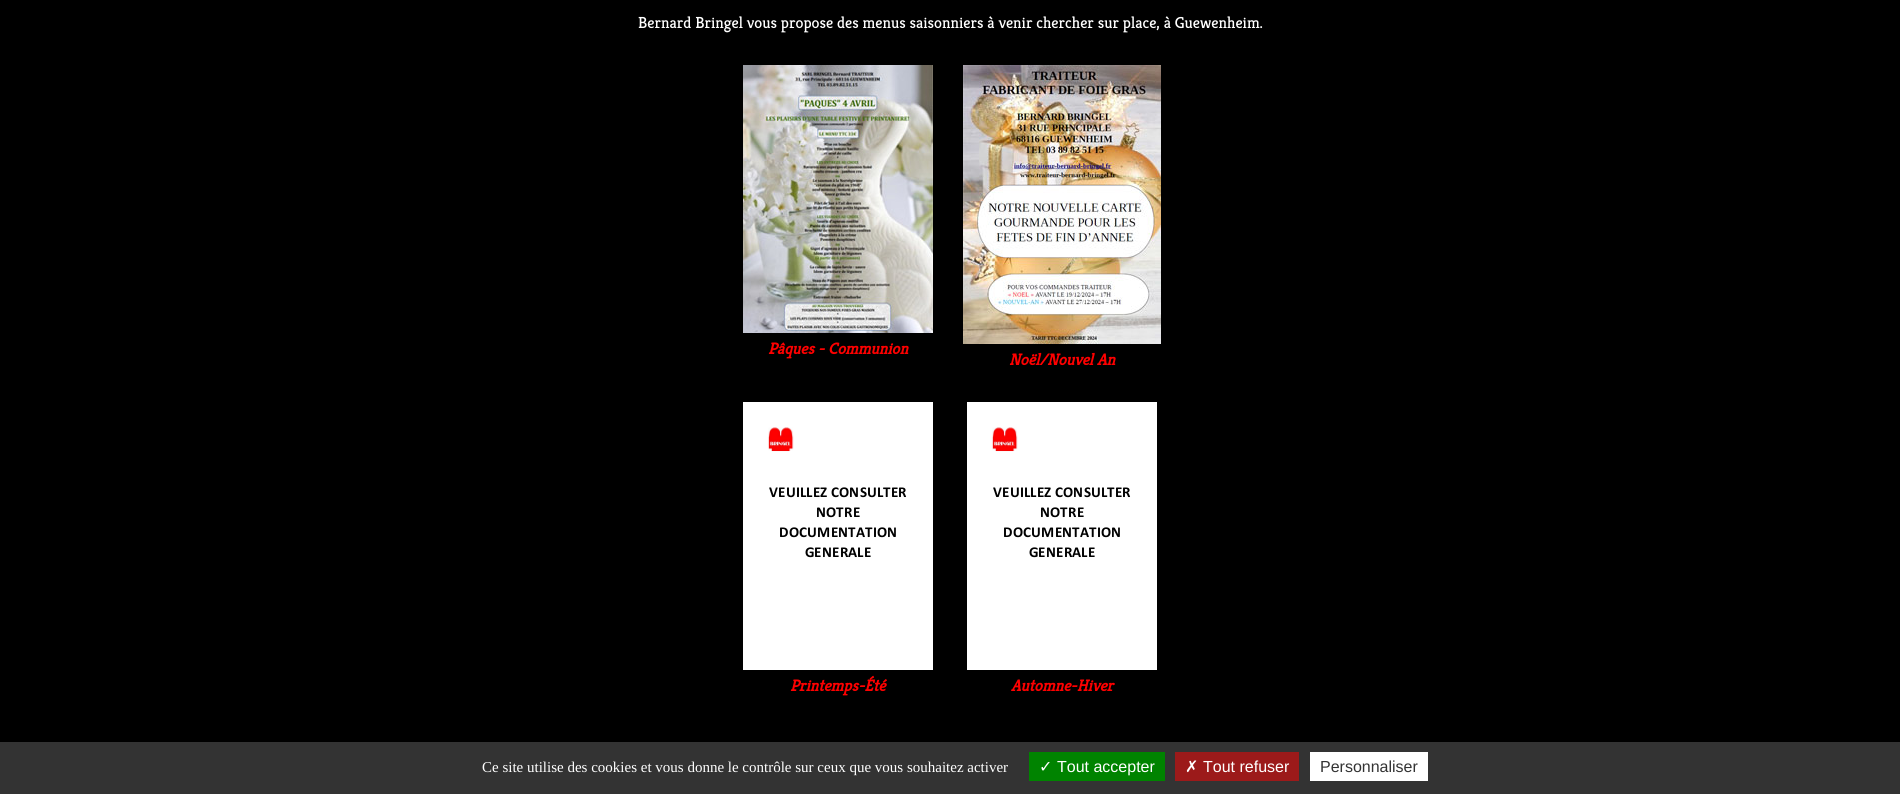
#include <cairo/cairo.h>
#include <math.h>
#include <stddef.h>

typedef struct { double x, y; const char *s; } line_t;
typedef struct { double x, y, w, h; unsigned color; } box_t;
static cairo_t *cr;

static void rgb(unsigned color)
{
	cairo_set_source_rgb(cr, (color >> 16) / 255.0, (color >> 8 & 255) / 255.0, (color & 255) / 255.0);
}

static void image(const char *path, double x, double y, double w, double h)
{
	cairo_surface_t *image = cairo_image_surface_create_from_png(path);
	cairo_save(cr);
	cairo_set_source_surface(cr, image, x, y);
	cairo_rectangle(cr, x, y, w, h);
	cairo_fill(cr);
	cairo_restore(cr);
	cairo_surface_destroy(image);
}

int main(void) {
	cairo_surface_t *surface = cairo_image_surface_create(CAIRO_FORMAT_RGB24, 1900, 794);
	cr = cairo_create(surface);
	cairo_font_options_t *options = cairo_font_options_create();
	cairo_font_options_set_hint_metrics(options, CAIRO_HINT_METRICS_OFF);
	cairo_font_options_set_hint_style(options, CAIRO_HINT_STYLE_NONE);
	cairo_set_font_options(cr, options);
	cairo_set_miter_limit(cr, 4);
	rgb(0x000000);
	cairo_paint(cr);
	image("img/1.png", 743, 65, 190, 268);
	image("img/2.png", 963, 65, 198, 279);
	image("img/3.png", 743, 402, 190, 268);
	image("img/3.png", 967, 402, 190, 268);
	{
		static const box_t items[] = {
			{0, 742, 1900, 52, 0x333333},
			{1029, 752, 136, 29, 0x008300},
			{1175, 752, 124, 29, 0x9c1a1a},
			{1310, 752, 118, 29, 0xffffff},
		};
		for (size_t i = 0; i < sizeof items / sizeof *items; i++) {
			rgb(items[i].color);
			cairo_rectangle(cr, items[i].x, items[i].y, items[i].w, items[i].h);
			cairo_fill(cr);
		}
	}
	cairo_select_font_face(cr, "Kreon Light", CAIRO_FONT_SLANT_NORMAL, CAIRO_FONT_WEIGHT_NORMAL);
	cairo_set_font_size(cr, 16);
	cairo_move_to(cr, 638, 28);
	cairo_show_text(cr, "Bernard Bringel vous propose des menus saisonniers à venir chercher sur place, à Guewenheim.");
	cairo_select_font_face(cr, "Kreon", CAIRO_FONT_SLANT_ITALIC, CAIRO_FONT_WEIGHT_BOLD);
	rgb(0xfe0000);
	{
		static const line_t items[] = {
			{768, 354, "Pâques - Communion"},
			{1009, 365, "Noël/Nouvel An"},
			{790, 691, "Printemps-Été"},
			{1011, 691, "Automne-Hiver"},
		};
		for (size_t i = 0; i < sizeof items / sizeof *items; i++) {
			cairo_move_to(cr, items[i].x, items[i].y);
			cairo_show_text(cr, items[i].s);
		}
	}
	cairo_select_font_face(cr, "Liberation Serif", CAIRO_FONT_SLANT_NORMAL, CAIRO_FONT_WEIGHT_NORMAL);
	cairo_set_font_size(cr, 15);
	rgb(0xffffff);
	cairo_move_to(cr, 482, 772);
	cairo_show_text(cr, "Ce site utilise des cookies et vous donne le contrôle sur ceux que vous souhaitez activer");
	cairo_select_font_face(cr, "DejaVu Sans", CAIRO_FONT_SLANT_NORMAL, CAIRO_FONT_WEIGHT_NORMAL);
	cairo_set_font_size(cr, 16);
	cairo_move_to(cr, 1039, 772);
	cairo_show_text(cr, "✓");
	cairo_select_font_face(cr, "Liberation Sans", CAIRO_FONT_SLANT_NORMAL, CAIRO_FONT_WEIGHT_NORMAL);
	cairo_move_to(cr, 1057, 772);
	cairo_show_text(cr, "Tout accepter");
	cairo_select_font_face(cr, "DejaVu Sans", CAIRO_FONT_SLANT_NORMAL, CAIRO_FONT_WEIGHT_NORMAL);
	cairo_move_to(cr, 1185, 772);
	cairo_show_text(cr, "✗");
	cairo_select_font_face(cr, "Liberation Sans", CAIRO_FONT_SLANT_NORMAL, CAIRO_FONT_WEIGHT_NORMAL);
	cairo_move_to(cr, 1203, 772);
	cairo_show_text(cr, "Tout refuser");
	rgb(0x333333);
	cairo_move_to(cr, 1320, 772);
	cairo_show_text(cr, "Personnaliser");
	cairo_surface_write_to_png(surface, "page.png");
	cairo_font_options_destroy(options);
	cairo_destroy(cr);
	cairo_surface_destroy(surface);
	return 0;
}
